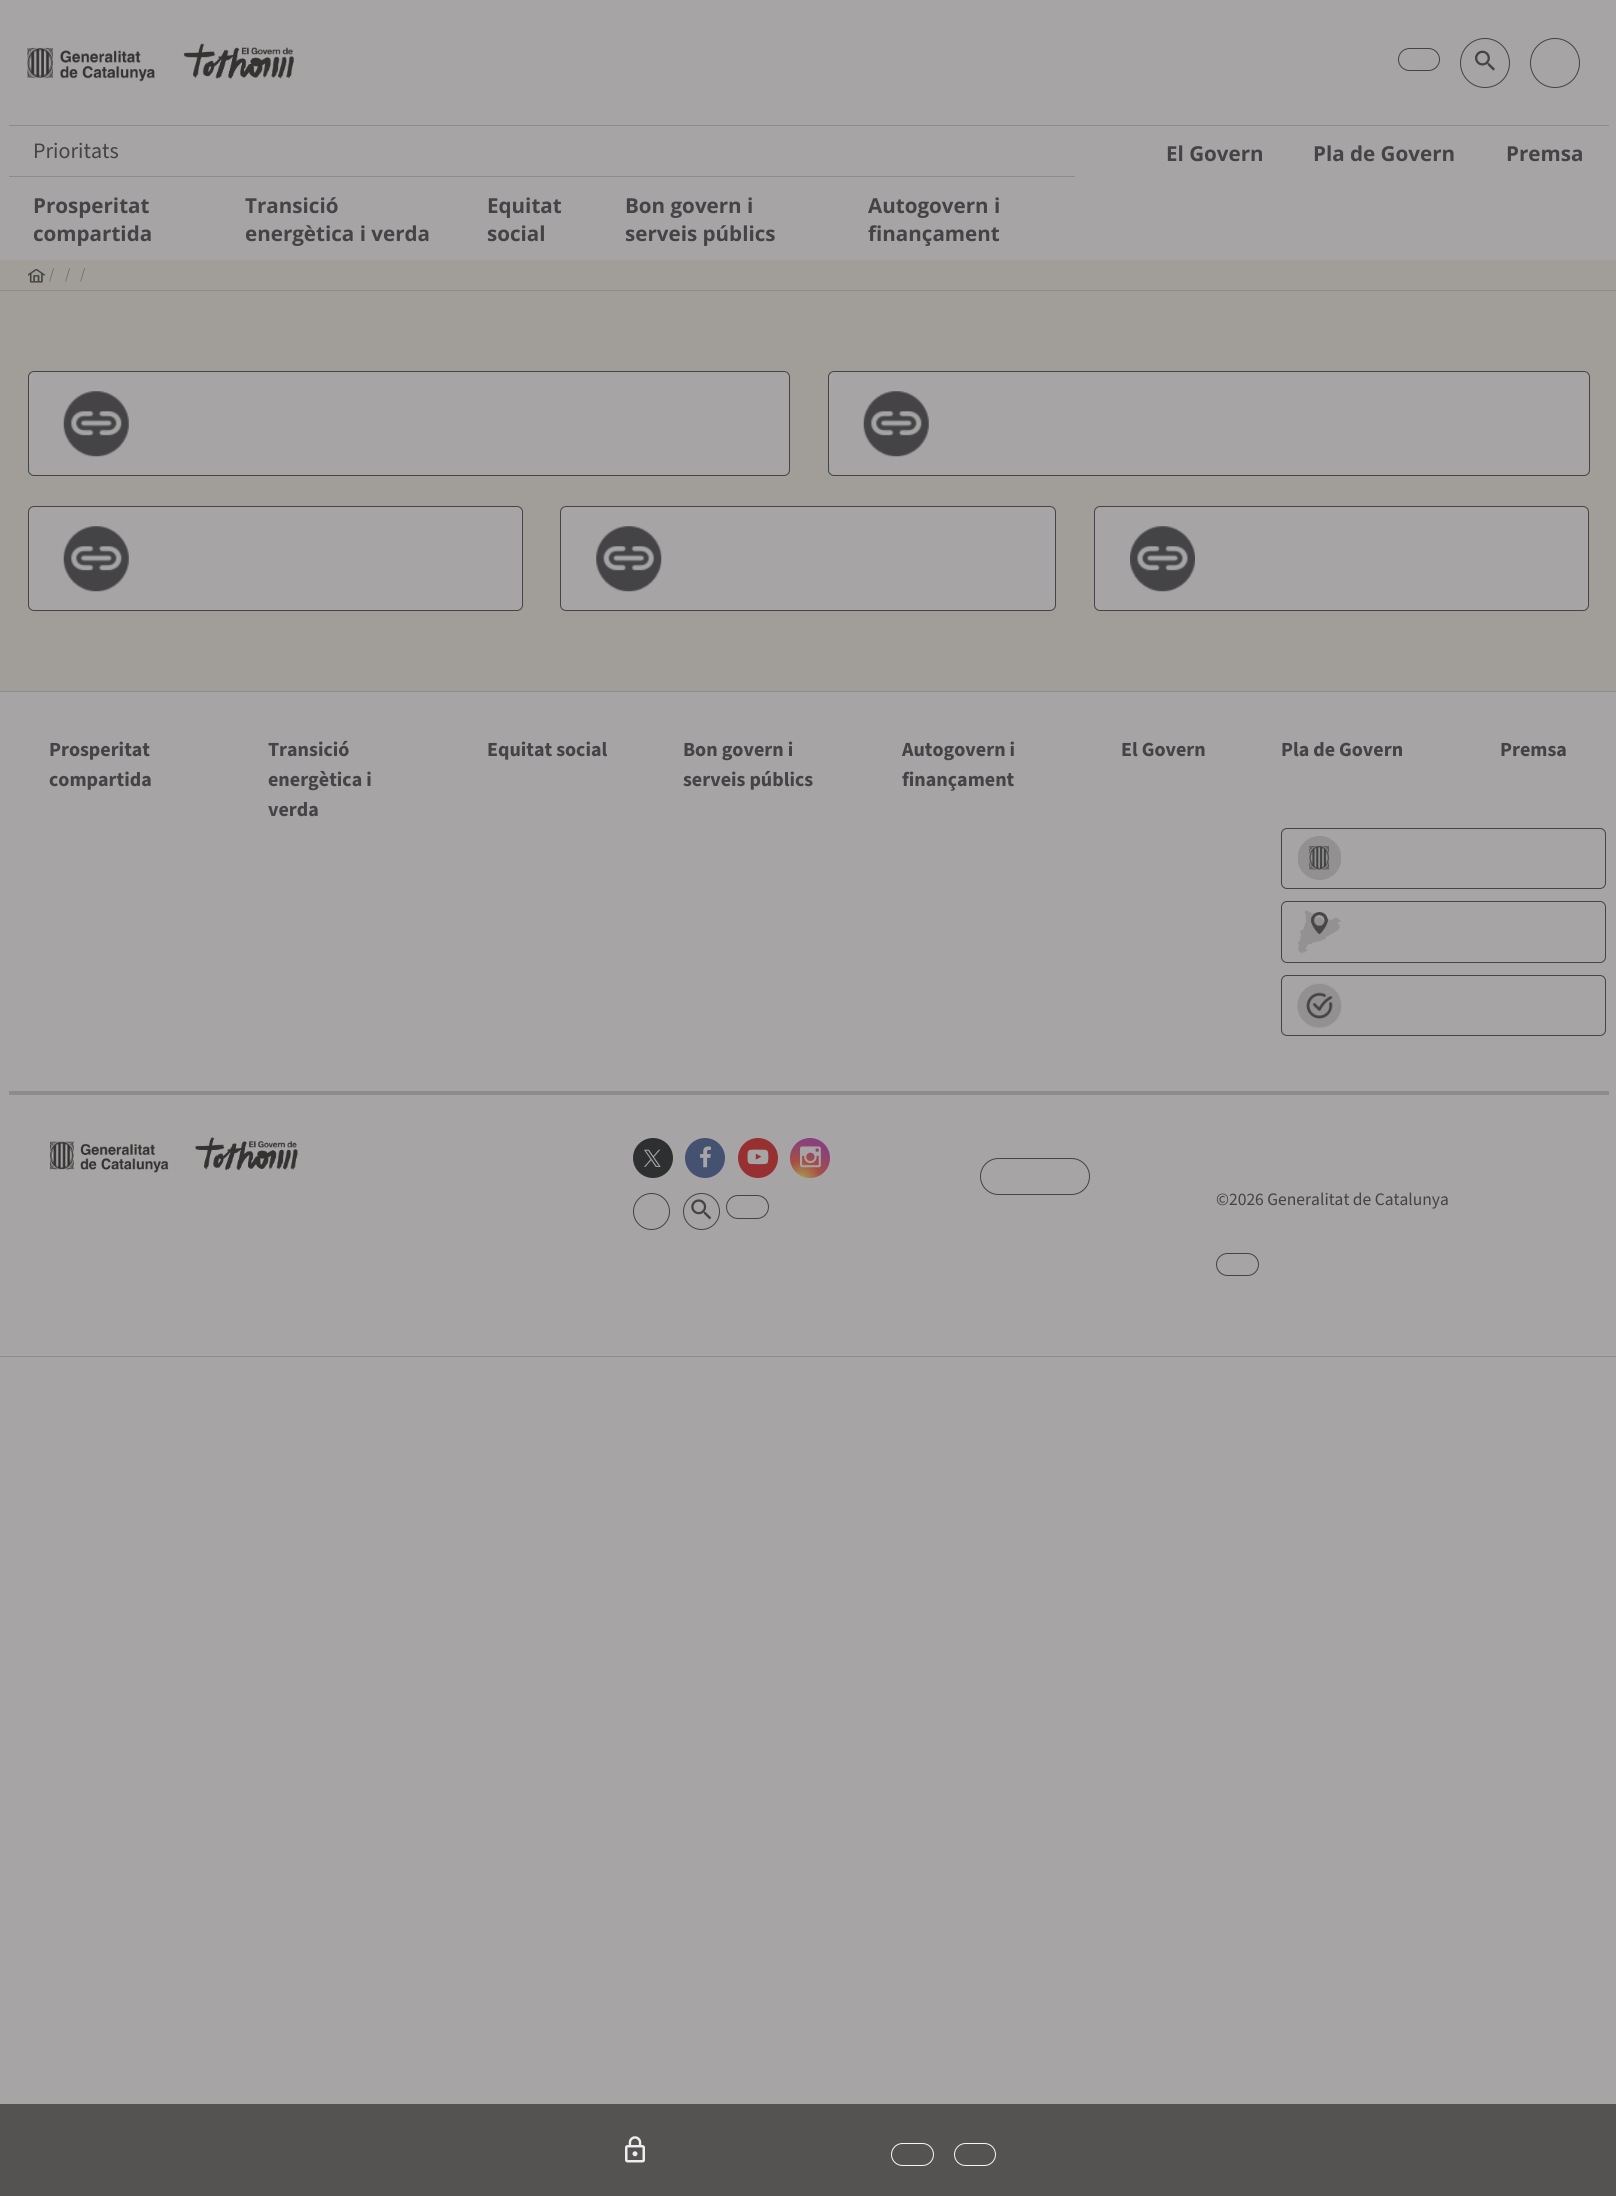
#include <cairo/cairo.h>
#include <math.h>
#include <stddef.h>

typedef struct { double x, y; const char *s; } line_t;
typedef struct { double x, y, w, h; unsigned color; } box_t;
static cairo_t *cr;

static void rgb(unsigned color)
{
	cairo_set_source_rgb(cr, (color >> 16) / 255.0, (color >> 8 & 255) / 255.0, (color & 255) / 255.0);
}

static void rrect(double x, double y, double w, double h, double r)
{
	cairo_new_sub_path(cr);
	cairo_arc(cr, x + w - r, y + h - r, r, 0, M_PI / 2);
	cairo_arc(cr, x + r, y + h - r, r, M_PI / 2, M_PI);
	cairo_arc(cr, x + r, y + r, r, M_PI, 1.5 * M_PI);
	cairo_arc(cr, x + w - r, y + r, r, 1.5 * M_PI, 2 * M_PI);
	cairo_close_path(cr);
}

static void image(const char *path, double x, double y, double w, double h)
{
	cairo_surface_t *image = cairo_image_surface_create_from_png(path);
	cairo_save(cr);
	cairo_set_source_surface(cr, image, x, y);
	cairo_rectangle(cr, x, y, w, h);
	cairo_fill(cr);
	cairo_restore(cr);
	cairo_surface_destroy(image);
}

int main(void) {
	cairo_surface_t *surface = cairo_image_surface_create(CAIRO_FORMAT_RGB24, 1616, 2196);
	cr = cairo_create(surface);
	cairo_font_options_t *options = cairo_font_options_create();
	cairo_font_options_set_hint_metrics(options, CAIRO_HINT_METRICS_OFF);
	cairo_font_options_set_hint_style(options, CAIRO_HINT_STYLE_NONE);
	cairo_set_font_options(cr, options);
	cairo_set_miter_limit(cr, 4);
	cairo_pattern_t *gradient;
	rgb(0xa6a4a4);
	cairo_paint(cr);
	image("img/1.png", 27, 43, 267, 39);
	rrect(1398.5, 48.5, 41, 22, 11);
	rgb(0x444345);
	cairo_set_line_width(cr, 1);
	cairo_stroke(cr);
	cairo_arc(cr, 1485, 63, 24.5, 0, 2 * M_PI);
	cairo_stroke(cr);
	image("img/2.png", 1475, 50, 20, 21);
	cairo_arc(cr, 1555, 63, 24.5, 0, 2 * M_PI);
	cairo_stroke(cr);
	{
		static const box_t items[] = {
			{9, 125, 1600, 1, 0x8d8c8c},
			{9, 176, 1066, 1, 0x8d8c8c},
			{0, 260, 1616, 30, 0xa19e99},
		};
		for (size_t i = 0; i < sizeof items / sizeof *items; i++) {
			rgb(items[i].color);
			cairo_rectangle(cr, items[i].x, items[i].y, items[i].w, items[i].h);
			cairo_fill(cr);
		}
	}
	image("img/3.png", 28, 269, 17, 14);
	rgb(0x8d8c8c);
	cairo_rectangle(cr, 0, 290, 1616, 1);
	cairo_fill(cr);
	rgb(0xa19e99);
	cairo_rectangle(cr, 0, 291, 1616, 400);
	cairo_fill(cr);
	rgb(0xa6a4a4);
	rrect(28.5, 371.5, 761, 104, 5.5);
	cairo_fill_preserve(cr);
	rgb(0x444345);
	cairo_stroke(cr);
	image("img/4.png", 63, 391, 66, 66);
	rgb(0xa6a4a4);
	rrect(828.5, 371.5, 761, 104, 5.5);
	cairo_fill_preserve(cr);
	rgb(0x444345);
	cairo_stroke(cr);
	image("img/5.png", 863, 391, 66, 66);
	rgb(0xa6a4a4);
	rrect(28.5, 506.5, 494, 104, 5.5);
	cairo_fill_preserve(cr);
	rgb(0x444345);
	cairo_stroke(cr);
	image("img/6.png", 63, 526, 66, 66);
	rgb(0xa6a4a4);
	rrect(560.5, 506.5, 495, 104, 5.5);
	cairo_fill_preserve(cr);
	rgb(0x444345);
	cairo_stroke(cr);
	image("img/7.png", 596, 526, 66, 66);
	rgb(0xa6a4a4);
	rrect(1094.5, 506.5, 494, 104, 5.5);
	cairo_fill_preserve(cr);
	rgb(0x444345);
	cairo_stroke(cr);
	image("img/8.png", 1130, 526, 65, 66);
	{
		static const box_t items[] = {
			{0, 691, 1616, 1, 0x8d8c8c},
			{0, 1356, 1616, 1, 0x8d8c8c},
			{9, 1091, 1600, 4, 0x8d8c8c},
		};
		for (size_t i = 0; i < sizeof items / sizeof *items; i++) {
			rgb(items[i].color);
			cairo_rectangle(cr, items[i].x, items[i].y, items[i].w, items[i].h);
			cairo_fill(cr);
		}
	}
	rrect(1281.5, 828.5, 324, 60, 5.5);
	rgb(0x444345);
	cairo_stroke(cr);
	image("img/9.png", 1298, 836, 43, 44);
	rrect(1281.5, 901.5, 324, 61, 5.5);
	cairo_stroke(cr);
	image("img/10.png", 1298, 910, 43, 44);
	rrect(1281.5, 975.5, 324, 60, 5.5);
	cairo_stroke(cr);
	image("img/11.png", 1297, 983, 45, 45);
	image("img/12.png", 50, 1137, 248, 36);
	rgb(0x2e2f31);
	cairo_arc(cr, 653, 1158, 20, 0, 2 * M_PI);
	cairo_fill(cr);
	image("img/13.png", 644, 1149, 17, 18);
	rgb(0x445171);
	cairo_arc(cr, 705, 1158, 20, 0, 2 * M_PI);
	cairo_fill(cr);
	image("img/14.png", 700, 1146, 11, 22);
	rgb(0x973030);
	cairo_arc(cr, 758, 1158, 20, 0, 2 * M_PI);
	cairo_fill(cr);
	image("img/15.png", 747, 1149, 22, 16);
	gradient = cairo_pattern_create_radial(801, 1181, 0, 801, 1181, 52);
	cairo_pattern_add_color_stop_rgba(gradient, 0, 0.651, 0.576, 0.31, 1);
	cairo_pattern_add_color_stop_rgba(gradient, 0.08, 0.651, 0.576, 0.31, 1);
	cairo_pattern_add_color_stop_rgba(gradient, 0.38, 0.651, 0.31, 0.267, 1);
	cairo_pattern_add_color_stop_rgba(gradient, 0.76, 0.541, 0.251, 0.478, 1);
	cairo_set_source(cr, gradient);
	cairo_pattern_destroy(gradient);
	cairo_arc(cr, 810, 1158, 20, 0, 2 * M_PI);
	cairo_fill(cr);
	image("img/16.png", 800, 1146, 21, 22);
	cairo_arc(cr, 651.5, 1211.5, 18, 0, 2 * M_PI);
	rgb(0x444345);
	cairo_stroke(cr);
	cairo_arc(cr, 701.5, 1211.5, 18, 0, 2 * M_PI);
	cairo_stroke(cr);
	image("img/17.png", 691, 1199, 21, 21);
	rrect(726.5, 1195.5, 42, 23, 11.5);
	cairo_stroke(cr);
	rrect(980.5, 1158.5, 109, 36, 18);
	cairo_stroke(cr);
	rrect(1216.5, 1253.5, 42, 22, 11);
	cairo_stroke(cr);
	rgb(0x555252);
	cairo_rectangle(cr, 0, 2104, 1616, 92);
	cairo_fill(cr);
	image("img/18.png", 625, 2136, 20, 27);
	rrect(891.5, 2143.5, 42, 22, 11);
	rgb(0xf6f6f6);
	cairo_stroke(cr);
	rrect(954.5, 2143.5, 41, 22, 11);
	cairo_stroke(cr);
	cairo_select_font_face(cr, "Source Sans 3", CAIRO_FONT_SLANT_NORMAL, CAIRO_FONT_WEIGHT_NORMAL);
	cairo_set_font_size(cr, 22);
	rgb(0x444345);
	cairo_move_to(cr, 33, 158);
	cairo_show_text(cr, "Prioritats");
	cairo_select_font_face(cr, "Open Sans", CAIRO_FONT_SLANT_NORMAL, CAIRO_FONT_WEIGHT_BOLD);
	cairo_set_font_size(cr, 20.6);
	{
		static const line_t items[] = {
			{33, 213, "Prosperitat"},
			{33, 241, "compartida"},
			{245, 213, "Transició"},
			{245, 241, "energètica i verda"},
			{487, 213, "Equitat"},
			{487, 241, "social"},
			{625, 213, "Bon govern i"},
			{625, 241, "serveis públics"},
			{868, 213, "Autogovern i"},
			{868, 241, "finançament"},
			{1166, 161, "El Govern"},
			{1313, 161, "Pla de Govern"},
			{1506, 161, "Premsa"},
		};
		for (size_t i = 0; i < sizeof items / sizeof *items; i++) {
			cairo_move_to(cr, items[i].x, items[i].y);
			cairo_show_text(cr, items[i].s);
		}
	}
	cairo_select_font_face(cr, "Source Sans 3", CAIRO_FONT_SLANT_NORMAL, CAIRO_FONT_WEIGHT_NORMAL);
	cairo_set_font_size(cr, 15);
	rgb(0x767166);
	{
		static const line_t items[] = {
			{49, 279, "/"},
			{65, 279, "/"},
			{80, 279, "/"},
		};
		for (size_t i = 0; i < sizeof items / sizeof *items; i++) {
			cairo_move_to(cr, items[i].x, items[i].y);
			cairo_show_text(cr, items[i].s);
		}
	}
	cairo_select_font_face(cr, "Source Sans 3", CAIRO_FONT_SLANT_NORMAL, CAIRO_FONT_WEIGHT_BOLD);
	cairo_set_font_size(cr, 20);
	rgb(0x444345);
	{
		static const line_t items[] = {
			{49, 756, "Prosperitat"},
			{49, 786, "compartida"},
			{268, 756, "Transició"},
			{268, 786, "energètica i"},
			{268, 816, "verda"},
			{487, 756, "Equitat social"},
			{683, 756, "Bon govern i"},
			{683, 786, "serveis públics"},
			{902, 756, "Autogovern i"},
			{902, 786, "finançament"},
			{1121, 756, "El Govern"},
			{1281, 756, "Pla de Govern"},
			{1500, 756, "Premsa"},
		};
		for (size_t i = 0; i < sizeof items / sizeof *items; i++) {
			cairo_move_to(cr, items[i].x, items[i].y);
			cairo_show_text(cr, items[i].s);
		}
	}
	cairo_select_font_face(cr, "Source Sans 3", CAIRO_FONT_SLANT_NORMAL, CAIRO_FONT_WEIGHT_NORMAL);
	cairo_set_font_size(cr, 17.5);
	cairo_move_to(cr, 1216, 1205);
	cairo_show_text(cr, "©2026 Generalitat de Catalunya");
	cairo_surface_write_to_png(surface, "page.png");
	cairo_font_options_destroy(options);
	cairo_destroy(cr);
	cairo_surface_destroy(surface);
	return 0;
}
